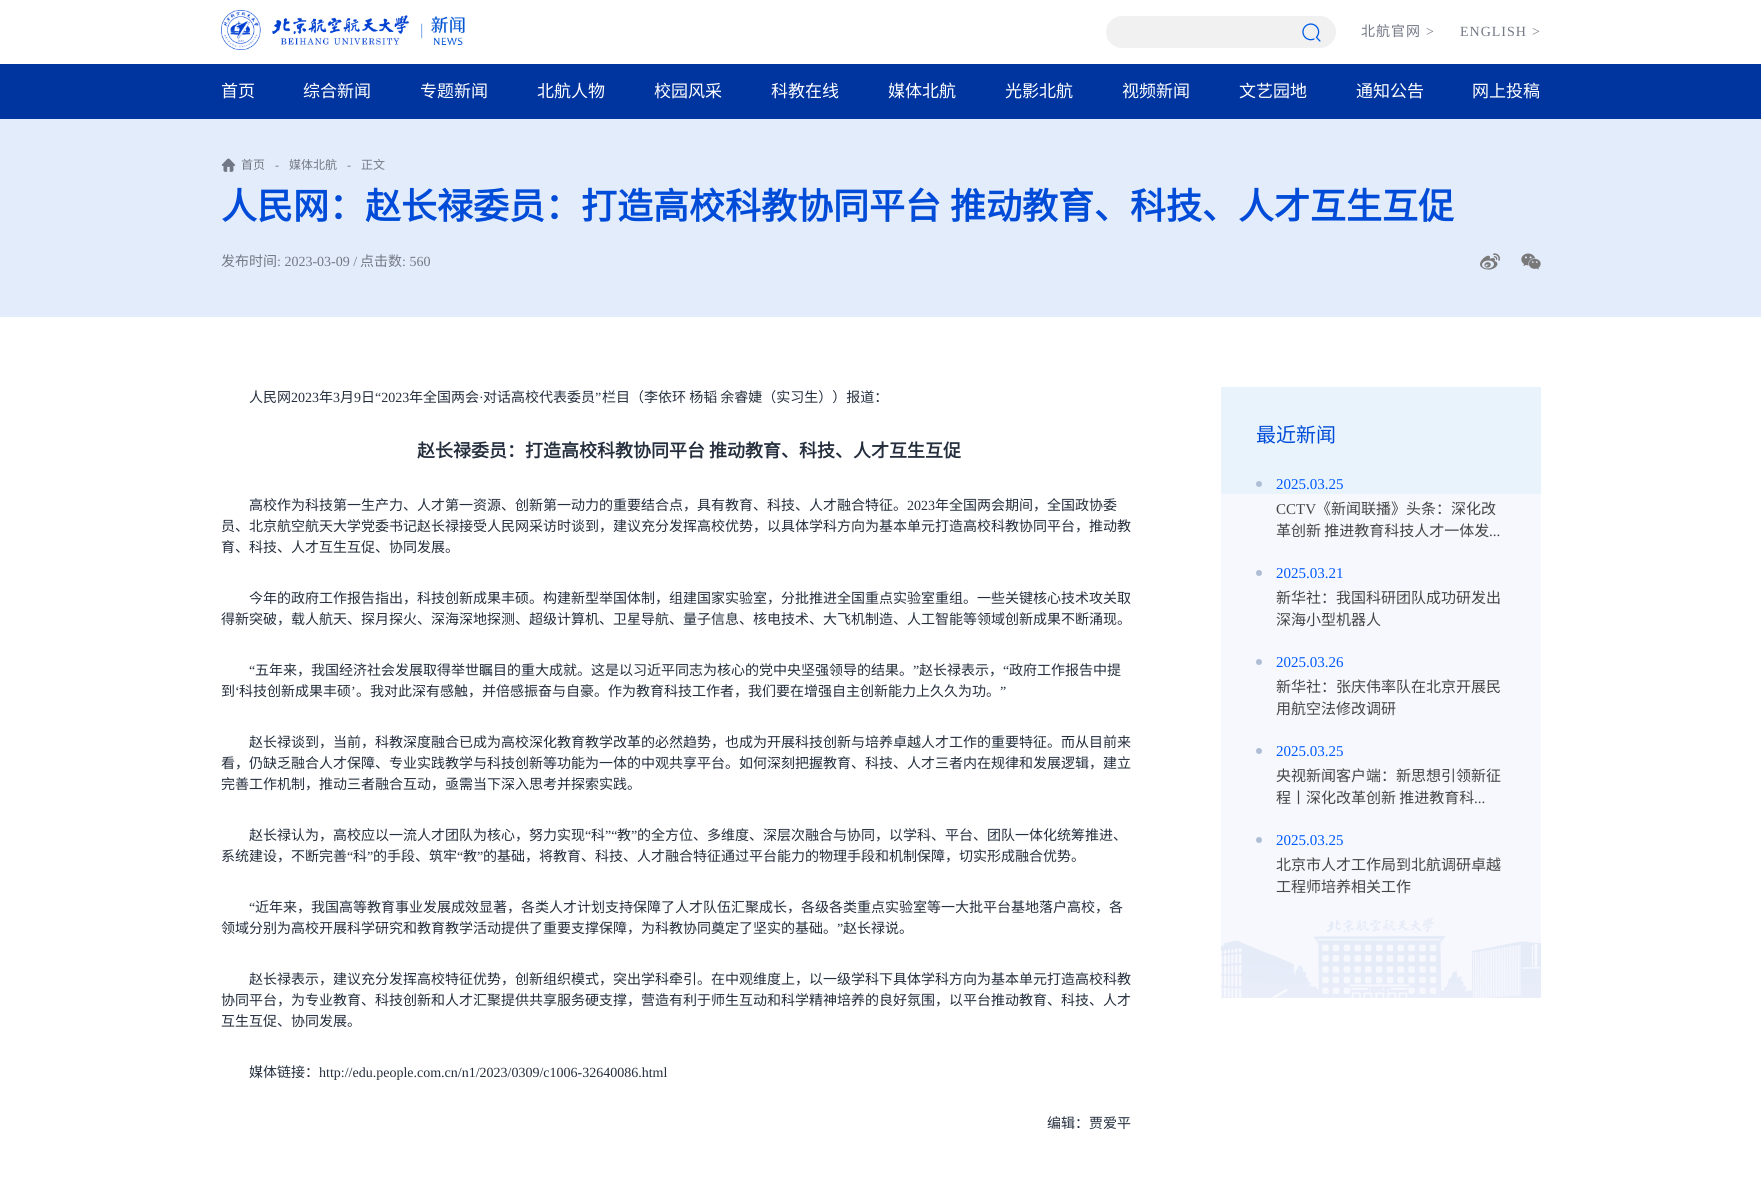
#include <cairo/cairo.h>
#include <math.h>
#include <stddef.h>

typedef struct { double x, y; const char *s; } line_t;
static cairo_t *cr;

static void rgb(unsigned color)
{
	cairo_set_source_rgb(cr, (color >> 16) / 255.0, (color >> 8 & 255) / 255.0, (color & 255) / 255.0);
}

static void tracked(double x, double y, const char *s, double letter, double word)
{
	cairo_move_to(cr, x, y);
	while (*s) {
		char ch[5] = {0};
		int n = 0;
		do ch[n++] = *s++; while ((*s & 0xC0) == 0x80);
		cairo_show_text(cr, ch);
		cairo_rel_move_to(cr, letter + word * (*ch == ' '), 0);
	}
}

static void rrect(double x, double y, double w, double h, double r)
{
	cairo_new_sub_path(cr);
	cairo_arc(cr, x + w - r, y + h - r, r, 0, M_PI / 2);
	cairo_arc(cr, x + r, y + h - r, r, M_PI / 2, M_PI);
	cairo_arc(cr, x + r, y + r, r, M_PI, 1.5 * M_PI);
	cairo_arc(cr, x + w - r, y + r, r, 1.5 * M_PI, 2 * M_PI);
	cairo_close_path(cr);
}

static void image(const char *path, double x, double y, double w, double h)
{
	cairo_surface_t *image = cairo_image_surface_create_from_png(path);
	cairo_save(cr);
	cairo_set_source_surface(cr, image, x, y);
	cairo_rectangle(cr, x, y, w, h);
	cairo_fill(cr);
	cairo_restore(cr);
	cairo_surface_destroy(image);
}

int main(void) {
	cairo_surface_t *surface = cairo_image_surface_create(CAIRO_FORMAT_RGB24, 1761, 1183);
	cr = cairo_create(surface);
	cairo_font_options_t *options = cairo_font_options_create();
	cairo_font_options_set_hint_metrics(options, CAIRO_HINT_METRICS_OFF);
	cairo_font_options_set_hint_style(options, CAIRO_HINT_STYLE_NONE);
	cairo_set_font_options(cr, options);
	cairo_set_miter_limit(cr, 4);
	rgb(0xffffff);
	cairo_paint(cr);
	image("img/1.png", 221, 10, 188, 40);
	image("img/2.png", 421, 16, 44, 29);
	rgb(0xf1f1f1);
	rrect(1106, 16, 230, 32, 16);
	cairo_fill(cr);
	image("img/3.png", 1302, 23, 19, 19);
	rgb(0x00349f);
	cairo_rectangle(cr, 0, 64, 1761, 55);
	cairo_fill(cr);
	rgb(0xe3ecfb);
	cairo_rectangle(cr, 0, 119, 1761, 198);
	cairo_fill(cr);
	image("img/4.png", 221, 158, 15, 14);
	image("img/5.png", 1480, 253, 20, 17);
	image("img/6.png", 1521, 253, 20, 17);
	rgb(0xe9f3fb);
	cairo_rectangle(cr, 1221, 387, 320, 107);
	cairo_fill(cr);
	image("img/7.png", 1221, 494, 320, 504);
	rgb(0xafbed5);
	cairo_arc(cr, 1259, 484, 3, 0, 2 * M_PI);
	cairo_fill(cr);
	cairo_arc(cr, 1259, 573, 3, 0, 2 * M_PI);
	cairo_fill(cr);
	cairo_arc(cr, 1259, 662, 3, 0, 2 * M_PI);
	cairo_fill(cr);
	cairo_arc(cr, 1259, 751, 3, 0, 2 * M_PI);
	cairo_fill(cr);
	cairo_arc(cr, 1259, 840, 3, 0, 2 * M_PI);
	cairo_fill(cr);
	cairo_select_font_face(cr, "Noto Sans CJK SC", CAIRO_FONT_SLANT_NORMAL, CAIRO_FONT_WEIGHT_NORMAL);
	cairo_set_font_size(cr, 14);
	rgb(0x737885);
	tracked(1361, 36, "北航官网", 1, 0);
	cairo_select_font_face(cr, "Liberation Serif", CAIRO_FONT_SLANT_NORMAL, CAIRO_FONT_WEIGHT_NORMAL);
	{
		static const line_t items[] = {
			{1426, 36, ">"},
			{1460, 36, "ENGLISH"},
			{1532, 36, ">"},
		};
		for (size_t i = 0; i < sizeof items / sizeof *items; i++) {
			tracked(items[i].x, items[i].y, items[i].s, 1, 0);
		}
	}
	cairo_select_font_face(cr, "Noto Sans CJK SC", CAIRO_FONT_SLANT_NORMAL, CAIRO_FONT_WEIGHT_NORMAL);
	cairo_set_font_size(cr, 17);
	rgb(0xffffff);
	{
		static const line_t items[] = {
			{221, 97, "首页"},
			{303, 97, "综合新闻"},
			{420, 97, "专题新闻"},
			{537, 97, "北航人物"},
			{654, 97, "校园风采"},
			{771, 97, "科教在线"},
			{888, 97, "媒体北航"},
			{1005, 97, "光影北航"},
			{1122, 97, "视频新闻"},
			{1239, 97, "文艺园地"},
			{1356, 97, "通知公告"},
			{1472, 97, "网上投稿"},
		};
		for (size_t i = 0; i < sizeof items / sizeof *items; i++) {
			cairo_move_to(cr, items[i].x, items[i].y);
			cairo_show_text(cr, items[i].s);
		}
	}
	cairo_set_font_size(cr, 12);
	rgb(0x737885);
	cairo_move_to(cr, 241, 169);
	cairo_show_text(cr, "首页");
	cairo_select_font_face(cr, "Liberation Serif", CAIRO_FONT_SLANT_NORMAL, CAIRO_FONT_WEIGHT_NORMAL);
	cairo_move_to(cr, 275, 169);
	cairo_show_text(cr, "-");
	cairo_select_font_face(cr, "Noto Sans CJK SC", CAIRO_FONT_SLANT_NORMAL, CAIRO_FONT_WEIGHT_NORMAL);
	cairo_move_to(cr, 289, 169);
	cairo_show_text(cr, "媒体北航");
	cairo_select_font_face(cr, "Liberation Serif", CAIRO_FONT_SLANT_NORMAL, CAIRO_FONT_WEIGHT_NORMAL);
	cairo_move_to(cr, 347, 169);
	cairo_show_text(cr, "-");
	cairo_select_font_face(cr, "Noto Sans CJK SC", CAIRO_FONT_SLANT_NORMAL, CAIRO_FONT_WEIGHT_NORMAL);
	cairo_move_to(cr, 361, 169);
	cairo_show_text(cr, "正文");
	cairo_select_font_face(cr, "Noto Sans CJK SC", CAIRO_FONT_SLANT_NORMAL, CAIRO_FONT_WEIGHT_BOLD);
	cairo_set_font_size(cr, 36);
	rgb(0x004cd8);
	tracked(221, 219, "人民网：赵长禄委员：打造高校科教协同平台 推动教育、科技、人才互生互促", 0, 1);
	cairo_select_font_face(cr, "Noto Sans CJK SC", CAIRO_FONT_SLANT_NORMAL, CAIRO_FONT_WEIGHT_NORMAL);
	cairo_set_font_size(cr, 14);
	rgb(0x737885);
	cairo_move_to(cr, 221, 266);
	cairo_show_text(cr, "发布时间");
	cairo_select_font_face(cr, "Liberation Serif", CAIRO_FONT_SLANT_NORMAL, CAIRO_FONT_WEIGHT_NORMAL);
	cairo_move_to(cr, 277, 266);
	cairo_show_text(cr, ": 2023-03-09 /");
	cairo_select_font_face(cr, "Noto Sans CJK SC", CAIRO_FONT_SLANT_NORMAL, CAIRO_FONT_WEIGHT_NORMAL);
	cairo_move_to(cr, 360, 266);
	cairo_show_text(cr, "点击数");
	cairo_select_font_face(cr, "Liberation Serif", CAIRO_FONT_SLANT_NORMAL, CAIRO_FONT_WEIGHT_NORMAL);
	cairo_move_to(cr, 402, 266);
	cairo_show_text(cr, ": 560");
	cairo_select_font_face(cr, "Noto Sans CJK SC", CAIRO_FONT_SLANT_NORMAL, CAIRO_FONT_WEIGHT_NORMAL);
	rgb(0x242e3d);
	cairo_move_to(cr, 249, 402);
	cairo_show_text(cr, "人民网");
	cairo_select_font_face(cr, "Liberation Serif", CAIRO_FONT_SLANT_NORMAL, CAIRO_FONT_WEIGHT_NORMAL);
	cairo_move_to(cr, 291, 402);
	cairo_show_text(cr, "2023");
	cairo_select_font_face(cr, "Noto Sans CJK SC", CAIRO_FONT_SLANT_NORMAL, CAIRO_FONT_WEIGHT_NORMAL);
	cairo_move_to(cr, 319, 402);
	cairo_show_text(cr, "年");
	cairo_select_font_face(cr, "Liberation Serif", CAIRO_FONT_SLANT_NORMAL, CAIRO_FONT_WEIGHT_NORMAL);
	cairo_move_to(cr, 333, 402);
	cairo_show_text(cr, "3");
	cairo_select_font_face(cr, "Noto Sans CJK SC", CAIRO_FONT_SLANT_NORMAL, CAIRO_FONT_WEIGHT_NORMAL);
	cairo_move_to(cr, 340, 402);
	cairo_show_text(cr, "月");
	cairo_select_font_face(cr, "Liberation Serif", CAIRO_FONT_SLANT_NORMAL, CAIRO_FONT_WEIGHT_NORMAL);
	cairo_move_to(cr, 354, 402);
	cairo_show_text(cr, "9");
	cairo_select_font_face(cr, "Noto Sans CJK SC", CAIRO_FONT_SLANT_NORMAL, CAIRO_FONT_WEIGHT_NORMAL);
	cairo_move_to(cr, 361, 402);
	cairo_show_text(cr, "日");
	cairo_select_font_face(cr, "Liberation Serif", CAIRO_FONT_SLANT_NORMAL, CAIRO_FONT_WEIGHT_NORMAL);
	cairo_move_to(cr, 375, 402);
	cairo_show_text(cr, "“2023");
	cairo_select_font_face(cr, "Noto Sans CJK SC", CAIRO_FONT_SLANT_NORMAL, CAIRO_FONT_WEIGHT_NORMAL);
	cairo_move_to(cr, 409, 402);
	cairo_show_text(cr, "年全国两会");
	cairo_move_to(cr, 483, 402);
	cairo_show_text(cr, "对话高校代表委员");
	cairo_select_font_face(cr, "Liberation Serif", CAIRO_FONT_SLANT_NORMAL, CAIRO_FONT_WEIGHT_NORMAL);
	cairo_move_to(cr, 595, 402);
	cairo_show_text(cr, "”");
	cairo_select_font_face(cr, "Noto Sans CJK SC", CAIRO_FONT_SLANT_NORMAL, CAIRO_FONT_WEIGHT_NORMAL);
	cairo_move_to(cr, 602, 402);
	cairo_show_text(cr, "栏目（李依环 杨韬 余睿婕（实习生））报道：");
	cairo_select_font_face(cr, "Liberation Serif", CAIRO_FONT_SLANT_NORMAL, CAIRO_FONT_WEIGHT_NORMAL);
	cairo_move_to(cr, 479, 402);
	cairo_show_text(cr, "·");
	cairo_select_font_face(cr, "Noto Sans CJK SC", CAIRO_FONT_SLANT_NORMAL, CAIRO_FONT_WEIGHT_BOLD);
	cairo_set_font_size(cr, 18);
	cairo_move_to(cr, 417, 457);
	cairo_show_text(cr, "赵长禄委员：打造高校科教协同平台 推动教育、科技、人才互生互促");
	cairo_select_font_face(cr, "Noto Sans CJK SC", CAIRO_FONT_SLANT_NORMAL, CAIRO_FONT_WEIGHT_NORMAL);
	cairo_set_font_size(cr, 14);
	cairo_move_to(cr, 249, 510);
	cairo_show_text(cr, "高校作为科技第一生产力、人才第一资源、创新第一动力的重要结合点，具有教育、科技、人才融合特征。");
	cairo_select_font_face(cr, "Liberation Serif", CAIRO_FONT_SLANT_NORMAL, CAIRO_FONT_WEIGHT_NORMAL);
	cairo_move_to(cr, 907, 510);
	cairo_show_text(cr, "2023");
	cairo_select_font_face(cr, "Noto Sans CJK SC", CAIRO_FONT_SLANT_NORMAL, CAIRO_FONT_WEIGHT_NORMAL);
	{
		static const line_t items[] = {
			{935, 510, "年全国两会期间，全国政协委"},
			{221, 531, "员、北京航空航天大学党委书记赵长禄接受人民网采访时谈到，建议充分发挥高校优势，以具体学科方向为基本单元打造高校科教协同平台，推动教"},
			{221, 552, "育、科技、人才互生互促、协同发展。"},
			{249, 603, "今年的政府工作报告指出，科技创新成果丰硕。构建新型举国体制，组建国家实验室，分批推进全国重点实验室重组。一些关键核心技术攻关取"},
			{221, 624, "得新突破，载人航天、探月探火、深海深地探测、超级计算机、卫星导航、量子信息、核电技术、大飞机制造、人工智能等领域创新成果不断涌现。"},
		};
		for (size_t i = 0; i < sizeof items / sizeof *items; i++) {
			cairo_move_to(cr, items[i].x, items[i].y);
			cairo_show_text(cr, items[i].s);
		}
	}
	cairo_select_font_face(cr, "Liberation Serif", CAIRO_FONT_SLANT_NORMAL, CAIRO_FONT_WEIGHT_NORMAL);
	cairo_move_to(cr, 249, 675);
	cairo_show_text(cr, "“");
	cairo_select_font_face(cr, "Noto Sans CJK SC", CAIRO_FONT_SLANT_NORMAL, CAIRO_FONT_WEIGHT_NORMAL);
	cairo_move_to(cr, 255, 675);
	cairo_show_text(cr, "五年来，我国经济社会发展取得举世瞩目的重大成就。这是以习近平同志为核心的党中央坚强领导的结果。");
	cairo_select_font_face(cr, "Liberation Serif", CAIRO_FONT_SLANT_NORMAL, CAIRO_FONT_WEIGHT_NORMAL);
	cairo_move_to(cr, 913, 675);
	cairo_show_text(cr, "”");
	cairo_select_font_face(cr, "Noto Sans CJK SC", CAIRO_FONT_SLANT_NORMAL, CAIRO_FONT_WEIGHT_NORMAL);
	cairo_move_to(cr, 919, 675);
	cairo_show_text(cr, "赵长禄表示，");
	cairo_select_font_face(cr, "Liberation Serif", CAIRO_FONT_SLANT_NORMAL, CAIRO_FONT_WEIGHT_NORMAL);
	cairo_move_to(cr, 1003, 675);
	cairo_show_text(cr, "“");
	cairo_select_font_face(cr, "Noto Sans CJK SC", CAIRO_FONT_SLANT_NORMAL, CAIRO_FONT_WEIGHT_NORMAL);
	cairo_move_to(cr, 1009, 675);
	cairo_show_text(cr, "政府工作报告中提");
	cairo_move_to(cr, 221, 696);
	cairo_show_text(cr, "到");
	cairo_select_font_face(cr, "Liberation Serif", CAIRO_FONT_SLANT_NORMAL, CAIRO_FONT_WEIGHT_NORMAL);
	cairo_move_to(cr, 235, 696);
	cairo_show_text(cr, "‘");
	cairo_select_font_face(cr, "Noto Sans CJK SC", CAIRO_FONT_SLANT_NORMAL, CAIRO_FONT_WEIGHT_NORMAL);
	cairo_move_to(cr, 239, 696);
	cairo_show_text(cr, "科技创新成果丰硕");
	cairo_select_font_face(cr, "Liberation Serif", CAIRO_FONT_SLANT_NORMAL, CAIRO_FONT_WEIGHT_NORMAL);
	cairo_move_to(cr, 351, 696);
	cairo_show_text(cr, "’");
	cairo_select_font_face(cr, "Noto Sans CJK SC", CAIRO_FONT_SLANT_NORMAL, CAIRO_FONT_WEIGHT_NORMAL);
	cairo_move_to(cr, 356, 696);
	cairo_show_text(cr, "。我对此深有感触，并倍感振奋与自豪。作为教育科技工作者，我们要在增强自主创新能力上久久为功。");
	cairo_select_font_face(cr, "Liberation Serif", CAIRO_FONT_SLANT_NORMAL, CAIRO_FONT_WEIGHT_NORMAL);
	cairo_move_to(cr, 1000, 696);
	cairo_show_text(cr, "”");
	cairo_select_font_face(cr, "Noto Sans CJK SC", CAIRO_FONT_SLANT_NORMAL, CAIRO_FONT_WEIGHT_NORMAL);
	{
		static const line_t items[] = {
			{249, 747, "赵长禄谈到，当前，科教深度融合已成为高校深化教育教学改革的必然趋势，也成为开展科技创新与培养卓越人才工作的重要特征。而从目前来"},
			{221, 768, "看，仍缺乏融合人才保障、专业实践教学与科技创新等功能为一体的中观共享平台。如何深刻把握教育、科技、人才三者内在规律和发展逻辑，建立"},
			{221, 789, "完善工作机制，推动三者融合互动，亟需当下深入思考并探索实践。"},
			{249, 840, "赵长禄认为，高校应以一流人才团队为核心，努力实现"},
		};
		for (size_t i = 0; i < sizeof items / sizeof *items; i++) {
			cairo_move_to(cr, items[i].x, items[i].y);
			cairo_show_text(cr, items[i].s);
		}
	}
	cairo_select_font_face(cr, "Liberation Serif", CAIRO_FONT_SLANT_NORMAL, CAIRO_FONT_WEIGHT_NORMAL);
	cairo_move_to(cr, 585, 840);
	cairo_show_text(cr, "“");
	cairo_select_font_face(cr, "Noto Sans CJK SC", CAIRO_FONT_SLANT_NORMAL, CAIRO_FONT_WEIGHT_NORMAL);
	cairo_move_to(cr, 591, 840);
	cairo_show_text(cr, "科");
	cairo_select_font_face(cr, "Liberation Serif", CAIRO_FONT_SLANT_NORMAL, CAIRO_FONT_WEIGHT_NORMAL);
	cairo_move_to(cr, 605, 840);
	cairo_show_text(cr, "”“");
	cairo_select_font_face(cr, "Noto Sans CJK SC", CAIRO_FONT_SLANT_NORMAL, CAIRO_FONT_WEIGHT_NORMAL);
	cairo_move_to(cr, 617, 840);
	cairo_show_text(cr, "教");
	cairo_select_font_face(cr, "Liberation Serif", CAIRO_FONT_SLANT_NORMAL, CAIRO_FONT_WEIGHT_NORMAL);
	cairo_move_to(cr, 631, 840);
	cairo_show_text(cr, "”");
	cairo_select_font_face(cr, "Noto Sans CJK SC", CAIRO_FONT_SLANT_NORMAL, CAIRO_FONT_WEIGHT_NORMAL);
	cairo_move_to(cr, 637, 840);
	cairo_show_text(cr, "的全方位、多维度、深层次融合与协同，以学科、平台、团队一体化统筹推进、");
	cairo_move_to(cr, 221, 861);
	cairo_show_text(cr, "系统建设，不断完善");
	cairo_select_font_face(cr, "Liberation Serif", CAIRO_FONT_SLANT_NORMAL, CAIRO_FONT_WEIGHT_NORMAL);
	cairo_move_to(cr, 347, 861);
	cairo_show_text(cr, "“");
	cairo_select_font_face(cr, "Noto Sans CJK SC", CAIRO_FONT_SLANT_NORMAL, CAIRO_FONT_WEIGHT_NORMAL);
	cairo_move_to(cr, 353, 861);
	cairo_show_text(cr, "科");
	cairo_select_font_face(cr, "Liberation Serif", CAIRO_FONT_SLANT_NORMAL, CAIRO_FONT_WEIGHT_NORMAL);
	cairo_move_to(cr, 367, 861);
	cairo_show_text(cr, "”");
	cairo_select_font_face(cr, "Noto Sans CJK SC", CAIRO_FONT_SLANT_NORMAL, CAIRO_FONT_WEIGHT_NORMAL);
	cairo_move_to(cr, 373, 861);
	cairo_show_text(cr, "的手段、筑牢");
	cairo_select_font_face(cr, "Liberation Serif", CAIRO_FONT_SLANT_NORMAL, CAIRO_FONT_WEIGHT_NORMAL);
	cairo_move_to(cr, 457, 861);
	cairo_show_text(cr, "“");
	cairo_select_font_face(cr, "Noto Sans CJK SC", CAIRO_FONT_SLANT_NORMAL, CAIRO_FONT_WEIGHT_NORMAL);
	cairo_move_to(cr, 463, 861);
	cairo_show_text(cr, "教");
	cairo_select_font_face(cr, "Liberation Serif", CAIRO_FONT_SLANT_NORMAL, CAIRO_FONT_WEIGHT_NORMAL);
	cairo_move_to(cr, 477, 861);
	cairo_show_text(cr, "”");
	cairo_select_font_face(cr, "Noto Sans CJK SC", CAIRO_FONT_SLANT_NORMAL, CAIRO_FONT_WEIGHT_NORMAL);
	cairo_move_to(cr, 483, 861);
	cairo_show_text(cr, "的基础，将教育、科技、人才融合特征通过平台能力的物理手段和机制保障，切实形成融合优势。");
	cairo_select_font_face(cr, "Liberation Serif", CAIRO_FONT_SLANT_NORMAL, CAIRO_FONT_WEIGHT_NORMAL);
	cairo_move_to(cr, 249, 912);
	cairo_show_text(cr, "“");
	cairo_select_font_face(cr, "Noto Sans CJK SC", CAIRO_FONT_SLANT_NORMAL, CAIRO_FONT_WEIGHT_NORMAL);
	cairo_move_to(cr, 255, 912);
	cairo_show_text(cr, "近年来，我国高等教育事业发展成效显著，各类人才计划支持保障了人才队伍汇聚成长，各级各类重点实验室等一大批平台基地落户高校，各");
	cairo_move_to(cr, 221, 933);
	cairo_show_text(cr, "领域分别为高校开展科学研究和教育教学活动提供了重要支撑保障，为科教协同奠定了坚实的基础。");
	cairo_select_font_face(cr, "Liberation Serif", CAIRO_FONT_SLANT_NORMAL, CAIRO_FONT_WEIGHT_NORMAL);
	cairo_move_to(cr, 837, 933);
	cairo_show_text(cr, "”");
	cairo_select_font_face(cr, "Noto Sans CJK SC", CAIRO_FONT_SLANT_NORMAL, CAIRO_FONT_WEIGHT_NORMAL);
	{
		static const line_t items[] = {
			{843, 933, "赵长禄说。"},
			{249, 984, "赵长禄表示，建议充分发挥高校特征优势，创新组织模式，突出学科牵引。在中观维度上，以一级学科下具体学科方向为基本单元打造高校科教"},
			{221, 1005, "协同平台，为专业教育、科技创新和人才汇聚提供共享服务硬支撑，营造有利于师生互动和科学精神培养的良好氛围，以平台推动教育、科技、人才"},
			{221, 1026, "互生互促、协同发展。"},
			{249, 1077, "媒体链接："},
		};
		for (size_t i = 0; i < sizeof items / sizeof *items; i++) {
			cairo_move_to(cr, items[i].x, items[i].y);
			cairo_show_text(cr, items[i].s);
		}
	}
	cairo_select_font_face(cr, "Liberation Serif", CAIRO_FONT_SLANT_NORMAL, CAIRO_FONT_WEIGHT_NORMAL);
	cairo_move_to(cr, 319, 1077);
	cairo_show_text(cr, "http://edu.people.com.cn/n1/2023/0309/c1006-32640086.html");
	cairo_select_font_face(cr, "Noto Sans CJK SC", CAIRO_FONT_SLANT_NORMAL, CAIRO_FONT_WEIGHT_NORMAL);
	cairo_move_to(cr, 1047, 1128);
	cairo_show_text(cr, "编辑：贾爱平");
	cairo_set_font_size(cr, 20);
	rgb(0x004cd8);
	cairo_move_to(cr, 1256, 442);
	cairo_show_text(cr, "最近新闻");
	cairo_select_font_face(cr, "Liberation Serif", CAIRO_FONT_SLANT_NORMAL, CAIRO_FONT_WEIGHT_NORMAL);
	cairo_set_font_size(cr, 15);
	rgb(0x005aff);
	cairo_move_to(cr, 1276, 489);
	cairo_show_text(cr, "2025.03.25");
	rgb(0x454545);
	cairo_move_to(cr, 1276, 514);
	cairo_show_text(cr, "CCTV");
	cairo_select_font_face(cr, "Noto Sans CJK SC", CAIRO_FONT_SLANT_NORMAL, CAIRO_FONT_WEIGHT_NORMAL);
	cairo_move_to(cr, 1316, 514);
	cairo_show_text(cr, "《新闻联播》头条：深化改");
	cairo_move_to(cr, 1276, 536);
	cairo_show_text(cr, "革创新 推进教育科技人才一体发");
	cairo_select_font_face(cr, "Liberation Serif", CAIRO_FONT_SLANT_NORMAL, CAIRO_FONT_WEIGHT_NORMAL);
	cairo_move_to(cr, 1489, 536);
	cairo_show_text(cr, "...");
	rgb(0x005aff);
	cairo_move_to(cr, 1276, 578);
	cairo_show_text(cr, "2025.03.21");
	cairo_select_font_face(cr, "Noto Sans CJK SC", CAIRO_FONT_SLANT_NORMAL, CAIRO_FONT_WEIGHT_NORMAL);
	rgb(0x454545);
	cairo_move_to(cr, 1276, 603);
	cairo_show_text(cr, "新华社：我国科研团队成功研发出");
	cairo_move_to(cr, 1276, 625);
	cairo_show_text(cr, "深海小型机器人");
	cairo_select_font_face(cr, "Liberation Serif", CAIRO_FONT_SLANT_NORMAL, CAIRO_FONT_WEIGHT_NORMAL);
	rgb(0x005aff);
	cairo_move_to(cr, 1276, 667);
	cairo_show_text(cr, "2025.03.26");
	cairo_select_font_face(cr, "Noto Sans CJK SC", CAIRO_FONT_SLANT_NORMAL, CAIRO_FONT_WEIGHT_NORMAL);
	rgb(0x454545);
	cairo_move_to(cr, 1276, 692);
	cairo_show_text(cr, "新华社：张庆伟率队在北京开展民");
	cairo_move_to(cr, 1276, 714);
	cairo_show_text(cr, "用航空法修改调研");
	cairo_select_font_face(cr, "Liberation Serif", CAIRO_FONT_SLANT_NORMAL, CAIRO_FONT_WEIGHT_NORMAL);
	rgb(0x005aff);
	cairo_move_to(cr, 1276, 756);
	cairo_show_text(cr, "2025.03.25");
	cairo_select_font_face(cr, "Noto Sans CJK SC", CAIRO_FONT_SLANT_NORMAL, CAIRO_FONT_WEIGHT_NORMAL);
	rgb(0x454545);
	cairo_move_to(cr, 1276, 781);
	cairo_show_text(cr, "央视新闻客户端：新思想引领新征");
	cairo_move_to(cr, 1276, 803);
	cairo_show_text(cr, "程丨深化改革创新 推进教育科");
	cairo_select_font_face(cr, "Liberation Serif", CAIRO_FONT_SLANT_NORMAL, CAIRO_FONT_WEIGHT_NORMAL);
	cairo_move_to(cr, 1474, 803);
	cairo_show_text(cr, "...");
	rgb(0x005aff);
	cairo_move_to(cr, 1276, 845);
	cairo_show_text(cr, "2025.03.25");
	cairo_select_font_face(cr, "Noto Sans CJK SC", CAIRO_FONT_SLANT_NORMAL, CAIRO_FONT_WEIGHT_NORMAL);
	rgb(0x454545);
	cairo_move_to(cr, 1276, 870);
	cairo_show_text(cr, "北京市人才工作局到北航调研卓越");
	cairo_move_to(cr, 1276, 892);
	cairo_show_text(cr, "工程师培养相关工作");
	cairo_surface_write_to_png(surface, "page.png");
	cairo_font_options_destroy(options);
	cairo_destroy(cr);
	cairo_surface_destroy(surface);
	return 0;
}
